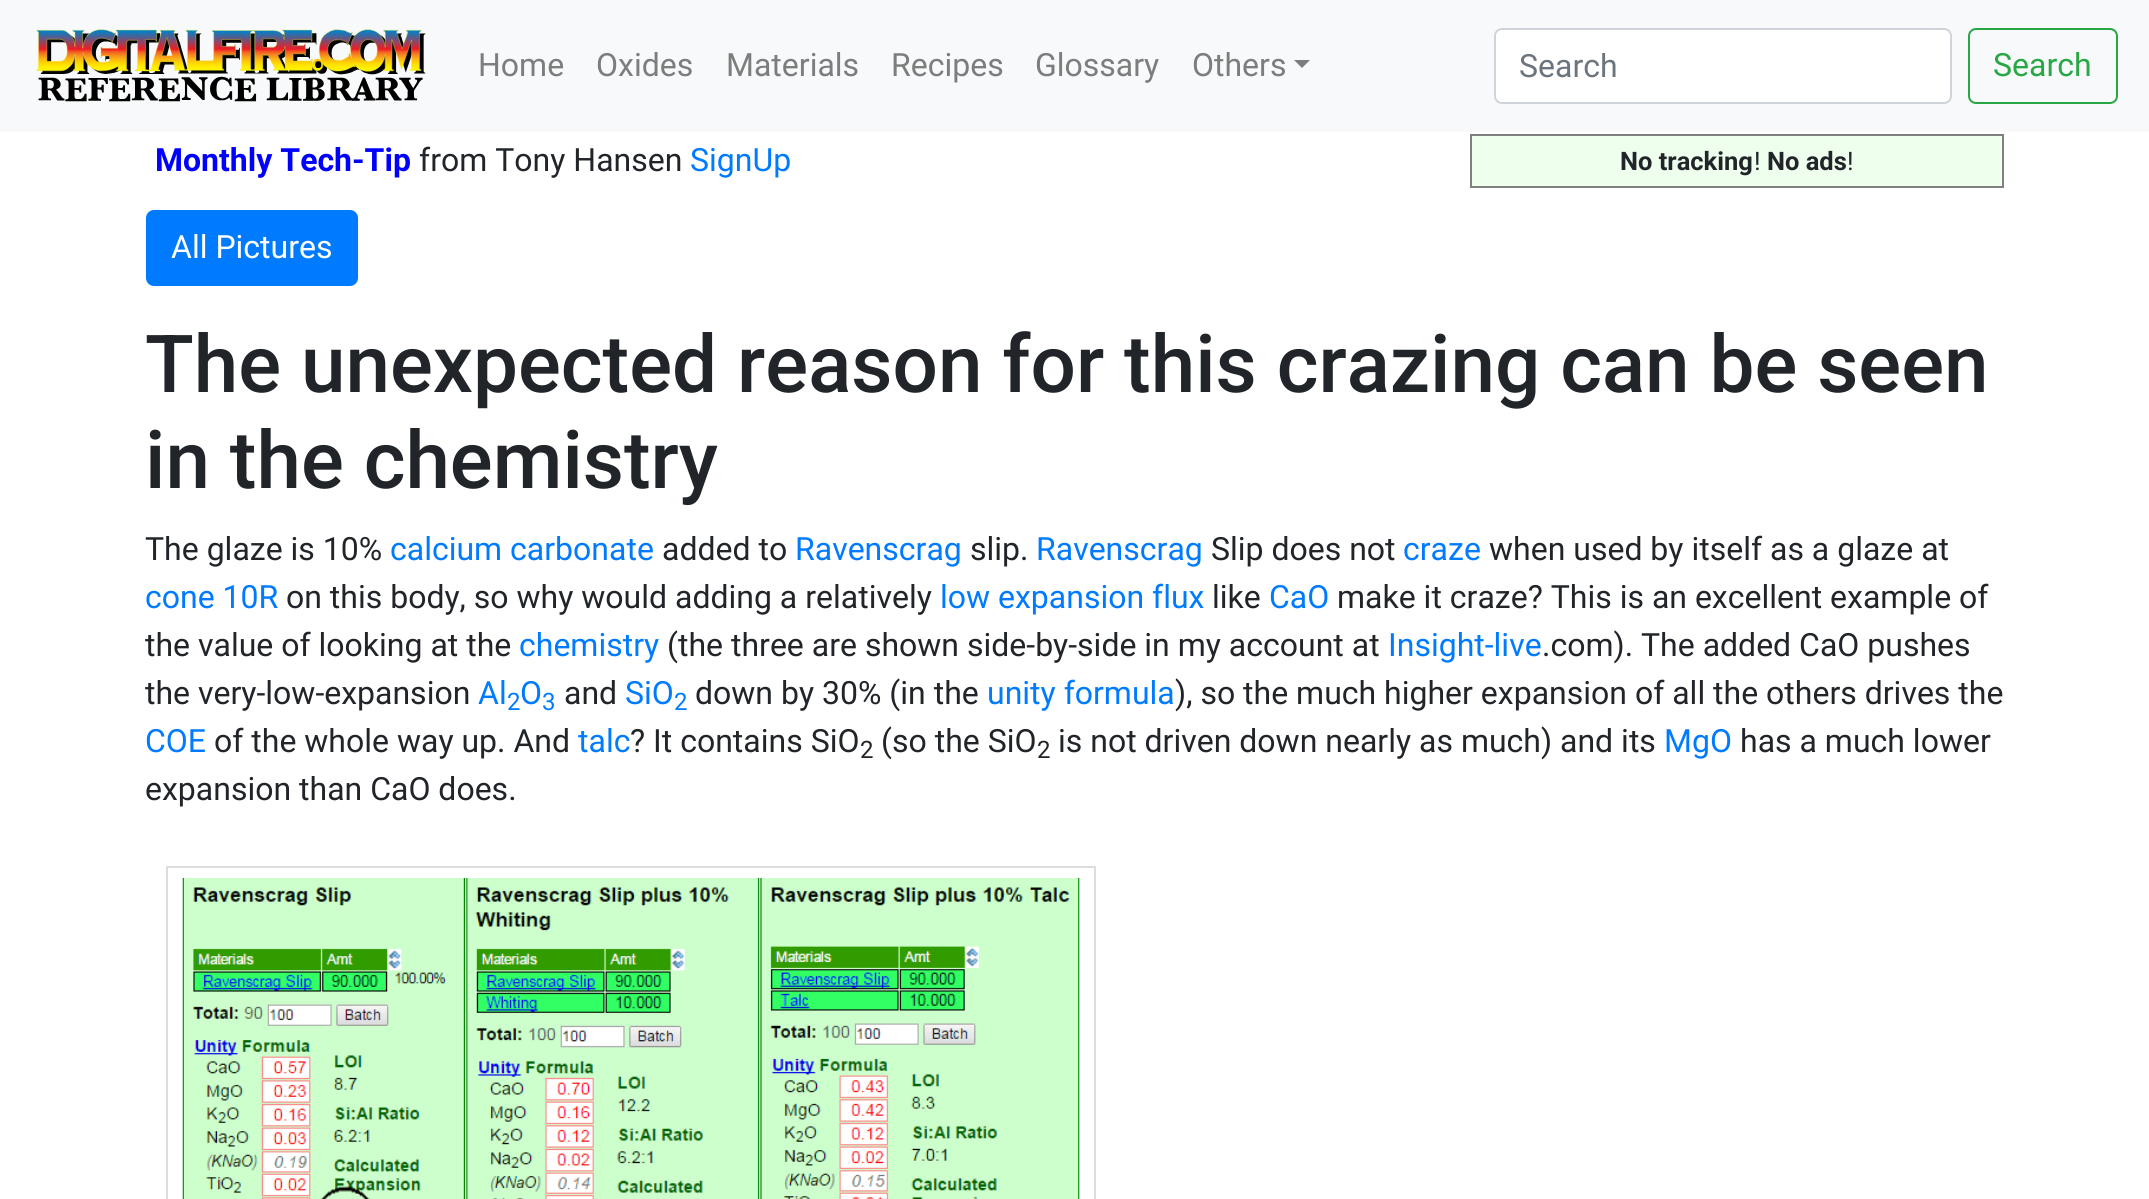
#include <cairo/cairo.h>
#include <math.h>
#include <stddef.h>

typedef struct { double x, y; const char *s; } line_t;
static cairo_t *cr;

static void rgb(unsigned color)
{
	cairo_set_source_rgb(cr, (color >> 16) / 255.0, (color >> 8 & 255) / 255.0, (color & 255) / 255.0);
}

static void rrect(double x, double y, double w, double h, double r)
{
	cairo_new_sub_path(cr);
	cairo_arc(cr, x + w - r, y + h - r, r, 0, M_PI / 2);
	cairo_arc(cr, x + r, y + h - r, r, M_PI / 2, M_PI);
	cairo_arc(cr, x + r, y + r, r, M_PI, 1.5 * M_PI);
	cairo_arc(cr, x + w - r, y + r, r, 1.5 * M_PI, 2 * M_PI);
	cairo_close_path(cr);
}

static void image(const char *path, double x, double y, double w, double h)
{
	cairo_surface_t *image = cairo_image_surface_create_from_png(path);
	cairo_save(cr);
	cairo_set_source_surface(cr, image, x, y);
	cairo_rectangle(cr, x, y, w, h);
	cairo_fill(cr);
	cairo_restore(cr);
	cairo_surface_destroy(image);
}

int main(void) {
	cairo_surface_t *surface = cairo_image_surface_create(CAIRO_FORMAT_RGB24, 2149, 1199);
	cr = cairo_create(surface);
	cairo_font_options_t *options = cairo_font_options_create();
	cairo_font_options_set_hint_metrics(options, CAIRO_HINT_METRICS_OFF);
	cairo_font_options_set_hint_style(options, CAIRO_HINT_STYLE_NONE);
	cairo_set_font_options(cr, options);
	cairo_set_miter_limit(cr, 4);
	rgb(0xffffff);
	cairo_paint(cr);
	rgb(0xf8f9fa);
	cairo_rectangle(cr, 0, 0, 2149, 132);
	cairo_fill(cr);
	image("img/1.png", 36, 29, 390, 73);
	rgb(0x7c7d7d);
	cairo_new_path(cr);
	cairo_move_to(cr, 1294, 60);
	cairo_line_to(cr, 1310, 60);
	cairo_line_to(cr, 1302, 68);
	cairo_close_path(cr);
	cairo_fill(cr);
	rgb(0xffffff);
	rrect(1495, 29, 456, 74, 7);
	cairo_fill_preserve(cr);
	rgb(0xced4da);
	cairo_stroke(cr);
	rrect(1969, 29, 148, 74, 7);
	rgb(0x28a745);
	cairo_stroke(cr);
	rgb(0xeeffee);
	cairo_rectangle(cr, 1471, 135, 532, 52);
	cairo_fill_preserve(cr);
	rgb(0x808080);
	cairo_stroke(cr);
	rgb(0x007bff);
	rrect(147, 211, 210, 74, 7);
	cairo_fill_preserve(cr);
	cairo_stroke(cr);
	cairo_rectangle(cr, 167, 867, 928, 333);
	rgb(0xdddddd);
	cairo_stroke(cr);
	image("img/2.png", 182, 878, 898, 321);
	cairo_select_font_face(cr, "Roboto", CAIRO_FONT_SLANT_NORMAL, CAIRO_FONT_WEIGHT_NORMAL);
	cairo_set_font_size(cr, 32);
	rgb(0x7c7d7d);
	{
		static const line_t items[] = {
			{478, 76, "Home"},
			{596, 76, "Oxides"},
			{726, 76, "Materials"},
			{891, 76, "Recipes"},
			{1035, 76, "Glossary"},
			{1192, 76, "Others"},
		};
		for (size_t i = 0; i < sizeof items / sizeof *items; i++) {
			cairo_move_to(cr, items[i].x, items[i].y);
			cairo_show_text(cr, items[i].s);
		}
	}
	rgb(0x6c757d);
	cairo_move_to(cr, 1519, 77);
	cairo_show_text(cr, "Search");
	rgb(0x28a745);
	cairo_move_to(cr, 1993, 76);
	cairo_show_text(cr, "Search");
	cairo_select_font_face(cr, "Roboto", CAIRO_FONT_SLANT_NORMAL, CAIRO_FONT_WEIGHT_BOLD);
	rgb(0x0000ff);
	cairo_move_to(cr, 155, 171);
	cairo_show_text(cr, "Monthly Tech-Tip");
	cairo_select_font_face(cr, "Roboto", CAIRO_FONT_SLANT_NORMAL, CAIRO_FONT_WEIGHT_NORMAL);
	rgb(0x212529);
	cairo_move_to(cr, 419, 171);
	cairo_show_text(cr, "from Tony Hansen");
	rgb(0x007bff);
	cairo_move_to(cr, 690, 171);
	cairo_show_text(cr, "SignUp");
	cairo_select_font_face(cr, "Roboto", CAIRO_FONT_SLANT_NORMAL, CAIRO_FONT_WEIGHT_BOLD);
	cairo_set_font_size(cr, 25.5);
	rgb(0x212529);
	cairo_move_to(cr, 1620, 170);
	cairo_show_text(cr, "No tracking");
	cairo_select_font_face(cr, "Roboto", CAIRO_FONT_SLANT_NORMAL, CAIRO_FONT_WEIGHT_NORMAL);
	cairo_move_to(cr, 1754, 170);
	cairo_show_text(cr, "!");
	cairo_select_font_face(cr, "Roboto", CAIRO_FONT_SLANT_NORMAL, CAIRO_FONT_WEIGHT_BOLD);
	cairo_move_to(cr, 1767, 170);
	cairo_show_text(cr, "No ads");
	cairo_select_font_face(cr, "Roboto", CAIRO_FONT_SLANT_NORMAL, CAIRO_FONT_WEIGHT_NORMAL);
	cairo_move_to(cr, 1847, 170);
	cairo_show_text(cr, "!");
	cairo_set_font_size(cr, 32);
	rgb(0xffffff);
	cairo_move_to(cr, 171, 258);
	cairo_show_text(cr, "All Pictures");
	cairo_select_font_face(cr, "Roboto Medium", CAIRO_FONT_SLANT_NORMAL, CAIRO_FONT_WEIGHT_NORMAL);
	cairo_set_font_size(cr, 80);
	rgb(0x212529);
	cairo_move_to(cr, 145, 392);
	cairo_show_text(cr, "The unexpected reason for this crazing can be seen");
	cairo_move_to(cr, 145, 488);
	cairo_show_text(cr, "in the chemistry");
	cairo_select_font_face(cr, "Roboto", CAIRO_FONT_SLANT_NORMAL, CAIRO_FONT_WEIGHT_NORMAL);
	cairo_set_font_size(cr, 32);
	cairo_move_to(cr, 145, 560);
	cairo_show_text(cr, "The glaze is 10%");
	rgb(0x007bff);
	cairo_move_to(cr, 390, 560);
	cairo_show_text(cr, "calcium carbonate");
	rgb(0x212529);
	cairo_move_to(cr, 662, 560);
	cairo_show_text(cr, "added to");
	rgb(0x007bff);
	cairo_move_to(cr, 795, 560);
	cairo_show_text(cr, "Ravenscrag");
	rgb(0x212529);
	cairo_move_to(cr, 970, 560);
	cairo_show_text(cr, "slip.");
	rgb(0x007bff);
	cairo_move_to(cr, 1036, 560);
	cairo_show_text(cr, "Ravenscrag");
	rgb(0x212529);
	cairo_move_to(cr, 1211, 560);
	cairo_show_text(cr, "Slip does not");
	rgb(0x007bff);
	cairo_move_to(cr, 1403, 560);
	cairo_show_text(cr, "craze");
	rgb(0x212529);
	cairo_move_to(cr, 1489, 560);
	cairo_show_text(cr, "when used by itself as a glaze at");
	rgb(0x007bff);
	cairo_move_to(cr, 145, 608);
	cairo_show_text(cr, "cone 10R");
	rgb(0x212529);
	cairo_move_to(cr, 286, 608);
	cairo_show_text(cr, "on this body, so why would adding a relatively");
	rgb(0x007bff);
	cairo_move_to(cr, 940, 608);
	cairo_show_text(cr, "low expansion flux");
	rgb(0x212529);
	cairo_move_to(cr, 1212, 608);
	cairo_show_text(cr, "like");
	rgb(0x007bff);
	cairo_move_to(cr, 1269, 608);
	cairo_show_text(cr, "CaO");
	rgb(0x212529);
	cairo_move_to(cr, 1337, 608);
	cairo_show_text(cr, "make it craze? This is an excellent example of");
	cairo_move_to(cr, 145, 656);
	cairo_show_text(cr, "the value of looking at the");
	rgb(0x007bff);
	cairo_move_to(cr, 519, 656);
	cairo_show_text(cr, "chemistry");
	rgb(0x212529);
	cairo_move_to(cr, 667, 656);
	cairo_show_text(cr, "(the three are shown side-by-side in my account at");
	rgb(0x007bff);
	cairo_move_to(cr, 1388, 656);
	cairo_show_text(cr, "Insight-live");
	rgb(0x212529);
	cairo_move_to(cr, 1542, 656);
	cairo_show_text(cr, ".com). The added CaO pushes");
	cairo_move_to(cr, 145, 704);
	cairo_show_text(cr, "the very-low-expansion");
	rgb(0x007bff);
	cairo_move_to(cr, 478, 704);
	cairo_show_text(cr, "Al");
	cairo_set_font_size(cr, 24);
	cairo_move_to(cr, 507, 710);
	cairo_show_text(cr, "2");
	cairo_set_font_size(cr, 32);
	cairo_move_to(cr, 520, 704);
	cairo_show_text(cr, "O");
	cairo_set_font_size(cr, 24);
	cairo_move_to(cr, 542, 710);
	cairo_show_text(cr, "3");
	cairo_set_font_size(cr, 32);
	rgb(0x212529);
	cairo_move_to(cr, 564, 704);
	cairo_show_text(cr, "and");
	rgb(0x007bff);
	cairo_move_to(cr, 625, 704);
	cairo_show_text(cr, "SiO");
	cairo_set_font_size(cr, 24);
	cairo_move_to(cr, 674, 710);
	cairo_show_text(cr, "2");
	cairo_set_font_size(cr, 32);
	rgb(0x212529);
	cairo_move_to(cr, 695, 704);
	cairo_show_text(cr, "down by 30% (in the");
	rgb(0x007bff);
	cairo_move_to(cr, 987, 704);
	cairo_show_text(cr, "unity formula");
	rgb(0x212529);
	cairo_move_to(cr, 1175, 704);
	cairo_show_text(cr, "), so the much higher expansion of all the others drives the");
	rgb(0x007bff);
	cairo_move_to(cr, 145, 752);
	cairo_show_text(cr, "COE");
	rgb(0x212529);
	cairo_move_to(cr, 214, 752);
	cairo_show_text(cr, "of the whole way up. And");
	rgb(0x007bff);
	cairo_move_to(cr, 578, 752);
	cairo_show_text(cr, "talc");
	rgb(0x212529);
	cairo_move_to(cr, 630, 752);
	cairo_show_text(cr, "? It contains SiO");
	cairo_set_font_size(cr, 24);
	cairo_move_to(cr, 860, 758);
	cairo_show_text(cr, "2");
	cairo_set_font_size(cr, 32);
	cairo_move_to(cr, 881, 752);
	cairo_show_text(cr, "(so the SiO");
	cairo_set_font_size(cr, 24);
	cairo_move_to(cr, 1037, 758);
	cairo_show_text(cr, "2");
	cairo_set_font_size(cr, 32);
	cairo_move_to(cr, 1058, 752);
	cairo_show_text(cr, "is not driven down nearly as much) and its");
	rgb(0x007bff);
	cairo_move_to(cr, 1664, 752);
	cairo_show_text(cr, "MgO");
	rgb(0x212529);
	cairo_move_to(cr, 1740, 752);
	cairo_show_text(cr, "has a much lower");
	cairo_move_to(cr, 145, 800);
	cairo_show_text(cr, "expansion than CaO does.");
	cairo_surface_write_to_png(surface, "page.png");
	cairo_font_options_destroy(options);
	cairo_destroy(cr);
	cairo_surface_destroy(surface);
	return 0;
}
